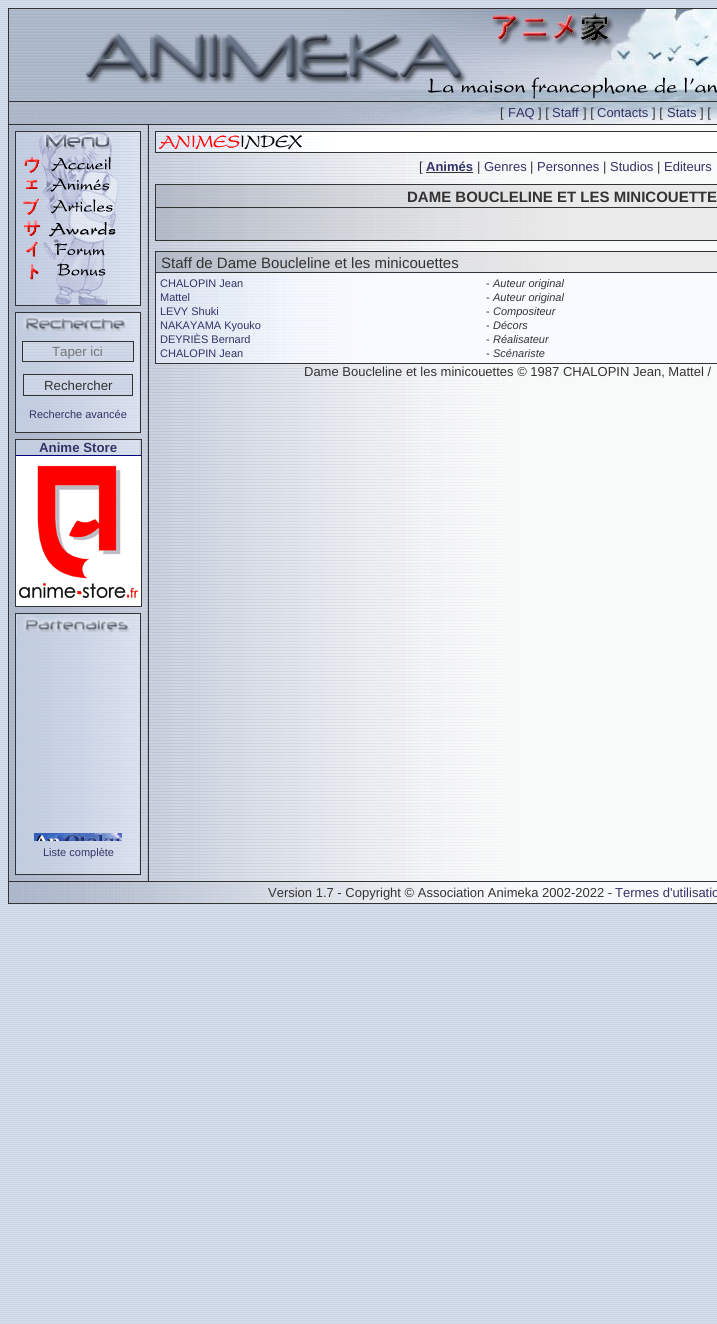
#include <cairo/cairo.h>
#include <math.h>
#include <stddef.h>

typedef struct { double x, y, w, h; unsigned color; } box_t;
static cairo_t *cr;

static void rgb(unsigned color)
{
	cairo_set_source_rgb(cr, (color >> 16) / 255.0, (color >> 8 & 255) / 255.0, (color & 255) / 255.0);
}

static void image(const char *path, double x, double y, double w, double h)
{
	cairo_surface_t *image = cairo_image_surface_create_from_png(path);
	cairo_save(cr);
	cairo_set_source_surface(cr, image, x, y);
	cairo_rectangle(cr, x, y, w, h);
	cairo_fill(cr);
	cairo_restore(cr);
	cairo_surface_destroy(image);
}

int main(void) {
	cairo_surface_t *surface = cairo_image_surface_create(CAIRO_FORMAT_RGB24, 717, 1324);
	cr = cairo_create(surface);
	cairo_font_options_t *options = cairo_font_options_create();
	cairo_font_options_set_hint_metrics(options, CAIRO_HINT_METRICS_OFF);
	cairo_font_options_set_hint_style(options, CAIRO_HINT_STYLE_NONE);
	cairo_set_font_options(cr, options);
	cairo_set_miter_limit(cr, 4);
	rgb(0xffffff);
	cairo_paint(cr);
	image("img/1.png", 0, 0, 717, 1324);
	{
		static const box_t items[] = {
			{8, 8, 709, 1, 0x333333},
			{8, 903, 709, 1, 0x333333},
			{8, 8, 1, 896, 0x333333},
		};
		for (size_t i = 0; i < sizeof items / sizeof *items; i++) {
			rgb(items[i].color);
			cairo_rectangle(cr, items[i].x, items[i].y, items[i].w, items[i].h);
			cairo_fill(cr);
		}
	}
	image("img/2.png", 9, 9, 708, 92);
	image("img/3.png", 9, 102, 708, 22);
	cairo_rectangle(cr, 9, 101, 708, 1);
	cairo_fill(cr);
	cairo_rectangle(cr, 9, 124, 708, 1);
	cairo_fill(cr);
	image("img/4.png", 149, 125, 568, 756);
	image("img/5.png", 155, 131, 562, 22);
	{
		static const box_t items[] = {
			{426, 172, 47, 1, 0x333333},
			{155, 184, 562, 1, 0x333333},
			{155, 240, 562, 1, 0x333333},
			{155, 184, 1, 57, 0x333333},
		};
		for (size_t i = 0; i < sizeof items / sizeof *items; i++) {
			rgb(items[i].color);
			cairo_rectangle(cr, items[i].x, items[i].y, items[i].w, items[i].h);
			cairo_fill(cr);
		}
	}
	image("img/6.png", 156, 185, 561, 22);
	image("img/7.png", 156, 208, 561, 32);
	cairo_rectangle(cr, 155, 207, 562, 1);
	cairo_fill(cr);
	image("img/8.png", 156, 273, 561, 90);
	{
		static const box_t items[] = {
			{155, 251, 562, 1, 0x333333},
			{155, 363, 562, 1, 0x333333},
			{155, 251, 1, 113, 0x333333},
		};
		for (size_t i = 0; i < sizeof items / sizeof *items; i++) {
			rgb(items[i].color);
			cairo_rectangle(cr, items[i].x, items[i].y, items[i].w, items[i].h);
			cairo_fill(cr);
		}
	}
	image("img/9.png", 156, 252, 561, 20);
	cairo_rectangle(cr, 155, 272, 562, 1);
	cairo_fill(cr);
	image("img/10.png", 9, 125, 139, 756);
	{
		static const box_t items[] = {
			{148, 125, 1, 757, 0x333333},
			{15, 131, 126, 1, 0x333333},
			{140, 131, 1, 175, 0x333333},
			{15, 305, 126, 1, 0x333333},
			{15, 131, 1, 175, 0x333333},
		};
		for (size_t i = 0; i < sizeof items / sizeof *items; i++) {
			rgb(items[i].color);
			cairo_rectangle(cr, items[i].x, items[i].y, items[i].w, items[i].h);
			cairo_fill(cr);
		}
	}
	image("img/11.png", 16, 132, 124, 173);
	image("img/12.png", 39, 135, 3, 18);
	image("img/13.png", 42, 132, 70, 21);
	image("img/14.png", 24, 156, 16, 17);
	image("img/15.png", 42, 153, 70, 22);
	image("img/16.png", 25, 180, 14, 9);
	image("img/17.png", 42, 175, 76, 22);
	image("img/18.png", 23, 198, 17, 17);
	image("img/19.png", 47, 197, 71, 22);
	image("img/20.png", 24, 220, 17, 16);
	image("img/21.png", 48, 219, 68, 22);
	image("img/22.png", 26, 241, 12, 16);
	image("img/23.png", 42, 241, 63, 22);
	image("img/24.png", 30, 264, 9, 16);
	image("img/25.png", 56, 263, 50, 22);
	image("img/26.png", 55, 285, 53, 20);
	image("img/27.png", 16, 335, 124, 97);
	{
		static const box_t items[] = {
			{15, 312, 126, 1, 0x333333},
			{140, 312, 1, 121, 0x333333},
			{15, 432, 126, 1, 0x333333},
			{15, 312, 1, 121, 0x333333},
		};
		for (size_t i = 0; i < sizeof items / sizeof *items; i++) {
			rgb(items[i].color);
			cairo_rectangle(cr, items[i].x, items[i].y, items[i].w, items[i].h);
			cairo_fill(cr);
		}
	}
	image("img/28.png", 16, 313, 124, 22);
	image("img/29.png", 23, 342, 110, 19);
	cairo_rectangle(cr, 22.5, 341.5, 111, 20);
	cairo_set_line_width(cr, 1);
	cairo_stroke(cr);
	image("img/30.png", 24, 375, 108, 20);
	cairo_rectangle(cr, 23.5, 374.5, 109, 21);
	cairo_stroke(cr);
	image("img/31.png", 16, 440, 125, 15);
	{
		static const box_t items[] = {
			{15, 439, 127, 1, 0x333333},
			{141, 439, 1, 168, 0x333333},
			{15, 606, 127, 1, 0x333333},
			{15, 439, 1, 168, 0x333333},
			{16, 455, 125, 1, 0x000080},
		};
		for (size_t i = 0; i < sizeof items / sizeof *items; i++) {
			rgb(items[i].color);
			cairo_rectangle(cr, items[i].x, items[i].y, items[i].w, items[i].h);
			cairo_fill(cr);
		}
	}
	image("img/32.png", 16, 456, 125, 150);
	image("img/33.png", 16, 636, 124, 238);
	{
		static const box_t items[] = {
			{15, 613, 126, 1, 0x333333},
			{140, 613, 1, 262, 0x333333},
			{15, 874, 126, 1, 0x333333},
			{15, 613, 1, 262, 0x333333},
		};
		for (size_t i = 0; i < sizeof items / sizeof *items; i++) {
			rgb(items[i].color);
			cairo_rectangle(cr, items[i].x, items[i].y, items[i].w, items[i].h);
			cairo_fill(cr);
		}
	}
	image("img/34.png", 16, 614, 124, 22);
	image("img/35.png", 34, 833, 88, 8);
	image("img/36.png", 9, 882, 708, 21);
	cairo_rectangle(cr, 9, 881, 708, 1);
	cairo_fill(cr);
	cairo_select_font_face(cr, "Liberation Sans", CAIRO_FONT_SLANT_NORMAL, CAIRO_FONT_WEIGHT_NORMAL);
	cairo_set_font_size(cr, 13);
	cairo_move_to(cr, 500, 117);
	cairo_show_text(cr, "[");
	rgb(0x333366);
	cairo_move_to(cr, 508, 117);
	cairo_show_text(cr, "FAQ");
	rgb(0x333333);
	cairo_move_to(cr, 538, 117);
	cairo_show_text(cr, "] [");
	rgb(0x333366);
	cairo_move_to(cr, 552, 117);
	cairo_show_text(cr, "Staff");
	rgb(0x333333);
	cairo_move_to(cr, 583, 117);
	cairo_show_text(cr, "] [");
	rgb(0x333366);
	cairo_move_to(cr, 597, 117);
	cairo_show_text(cr, "Contacts");
	rgb(0x333333);
	cairo_move_to(cr, 652, 117);
	cairo_show_text(cr, "] [");
	rgb(0x333366);
	cairo_move_to(cr, 667, 117);
	cairo_show_text(cr, "Stats");
	rgb(0x333333);
	cairo_move_to(cr, 700, 117);
	cairo_show_text(cr, "] [");
	cairo_move_to(cr, 419, 171);
	cairo_show_text(cr, "[");
	cairo_select_font_face(cr, "Liberation Sans", CAIRO_FONT_SLANT_NORMAL, CAIRO_FONT_WEIGHT_BOLD);
	rgb(0x333366);
	cairo_move_to(cr, 426, 171);
	cairo_show_text(cr, "Animés");
	cairo_select_font_face(cr, "Liberation Sans", CAIRO_FONT_SLANT_NORMAL, CAIRO_FONT_WEIGHT_NORMAL);
	rgb(0x333333);
	cairo_move_to(cr, 477, 171);
	cairo_show_text(cr, "|");
	rgb(0x333366);
	cairo_move_to(cr, 484, 171);
	cairo_show_text(cr, "Genres");
	rgb(0x333333);
	cairo_move_to(cr, 530, 171);
	cairo_show_text(cr, "|");
	rgb(0x333366);
	cairo_move_to(cr, 537, 171);
	cairo_show_text(cr, "Personnes");
	rgb(0x333333);
	cairo_move_to(cr, 603, 171);
	cairo_show_text(cr, "|");
	rgb(0x333366);
	cairo_move_to(cr, 610, 171);
	cairo_show_text(cr, "Studios");
	rgb(0x333333);
	cairo_move_to(cr, 657, 171);
	cairo_show_text(cr, "|");
	rgb(0x333366);
	cairo_move_to(cr, 664, 171);
	cairo_show_text(cr, "Editeurs");
	cairo_select_font_face(cr, "Liberation Sans", CAIRO_FONT_SLANT_NORMAL, CAIRO_FONT_WEIGHT_BOLD);
	cairo_set_font_size(cr, 15);
	rgb(0x333333);
	cairo_move_to(cr, 407, 202);
	cairo_show_text(cr, "DAME BOUCLELINE ET LES MINICOUETTE");
	cairo_select_font_face(cr, "Liberation Sans", CAIRO_FONT_SLANT_NORMAL, CAIRO_FONT_WEIGHT_NORMAL);
	cairo_move_to(cr, 161, 268);
	cairo_show_text(cr, "Staff de Dame Boucleline et les minicouettes");
	cairo_set_font_size(cr, 11);
	rgb(0x333366);
	cairo_move_to(cr, 160, 287);
	cairo_show_text(cr, "CHALOPIN Jean");
	rgb(0x333333);
	cairo_move_to(cr, 486, 287);
	cairo_show_text(cr, "-");
	cairo_select_font_face(cr, "Liberation Sans", CAIRO_FONT_SLANT_ITALIC, CAIRO_FONT_WEIGHT_NORMAL);
	cairo_move_to(cr, 493, 287);
	cairo_show_text(cr, "Auteur original");
	cairo_select_font_face(cr, "Liberation Sans", CAIRO_FONT_SLANT_NORMAL, CAIRO_FONT_WEIGHT_NORMAL);
	rgb(0x333366);
	cairo_move_to(cr, 160, 301);
	cairo_show_text(cr, "Mattel");
	rgb(0x333333);
	cairo_move_to(cr, 486, 301);
	cairo_show_text(cr, "-");
	cairo_select_font_face(cr, "Liberation Sans", CAIRO_FONT_SLANT_ITALIC, CAIRO_FONT_WEIGHT_NORMAL);
	cairo_move_to(cr, 493, 301);
	cairo_show_text(cr, "Auteur original");
	cairo_select_font_face(cr, "Liberation Sans", CAIRO_FONT_SLANT_NORMAL, CAIRO_FONT_WEIGHT_NORMAL);
	rgb(0x333366);
	cairo_move_to(cr, 160, 315);
	cairo_show_text(cr, "LEVY Shuki");
	rgb(0x333333);
	cairo_move_to(cr, 486, 315);
	cairo_show_text(cr, "-");
	cairo_select_font_face(cr, "Liberation Sans", CAIRO_FONT_SLANT_ITALIC, CAIRO_FONT_WEIGHT_NORMAL);
	cairo_move_to(cr, 493, 315);
	cairo_show_text(cr, "Compositeur");
	cairo_select_font_face(cr, "Liberation Sans", CAIRO_FONT_SLANT_NORMAL, CAIRO_FONT_WEIGHT_NORMAL);
	rgb(0x333366);
	cairo_move_to(cr, 160, 329);
	cairo_show_text(cr, "NAKAYAMA Kyouko");
	rgb(0x333333);
	cairo_move_to(cr, 486, 329);
	cairo_show_text(cr, "-");
	cairo_select_font_face(cr, "Liberation Sans", CAIRO_FONT_SLANT_ITALIC, CAIRO_FONT_WEIGHT_NORMAL);
	cairo_move_to(cr, 493, 329);
	cairo_show_text(cr, "Décors");
	cairo_select_font_face(cr, "Liberation Sans", CAIRO_FONT_SLANT_NORMAL, CAIRO_FONT_WEIGHT_NORMAL);
	rgb(0x333366);
	cairo_move_to(cr, 160, 343);
	cairo_show_text(cr, "DEYRIÈS Bernard");
	rgb(0x333333);
	cairo_move_to(cr, 486, 343);
	cairo_show_text(cr, "-");
	cairo_select_font_face(cr, "Liberation Sans", CAIRO_FONT_SLANT_ITALIC, CAIRO_FONT_WEIGHT_NORMAL);
	cairo_move_to(cr, 493, 343);
	cairo_show_text(cr, "Réalisateur");
	cairo_select_font_face(cr, "Liberation Sans", CAIRO_FONT_SLANT_NORMAL, CAIRO_FONT_WEIGHT_NORMAL);
	rgb(0x333366);
	cairo_move_to(cr, 160, 357);
	cairo_show_text(cr, "CHALOPIN Jean");
	rgb(0x333333);
	cairo_move_to(cr, 486, 357);
	cairo_show_text(cr, "-");
	cairo_select_font_face(cr, "Liberation Sans", CAIRO_FONT_SLANT_ITALIC, CAIRO_FONT_WEIGHT_NORMAL);
	cairo_move_to(cr, 493, 357);
	cairo_show_text(cr, "Scénariste");
	cairo_select_font_face(cr, "Liberation Sans", CAIRO_FONT_SLANT_NORMAL, CAIRO_FONT_WEIGHT_NORMAL);
	cairo_set_font_size(cr, 13);
	cairo_move_to(cr, 304, 376);
	cairo_show_text(cr, "Dame Boucleline et les minicouettes © 1987 CHALOPIN Jean, Mattel /");
	cairo_set_font_size(cr, 13.25);
	rgb(0x757575);
	cairo_move_to(cr, 52, 356);
	cairo_show_text(cr, "Taper ici");
	rgb(0x333333);
	cairo_move_to(cr, 44, 390);
	cairo_show_text(cr, "Rechercher");
	cairo_set_font_size(cr, 11);
	rgb(0x333366);
	cairo_move_to(cr, 29, 418);
	cairo_show_text(cr, "Recherche avancée");
	cairo_select_font_face(cr, "Liberation Sans", CAIRO_FONT_SLANT_NORMAL, CAIRO_FONT_WEIGHT_BOLD);
	cairo_set_font_size(cr, 13.25);
	cairo_move_to(cr, 39, 452);
	cairo_show_text(cr, "Anime Store");
	cairo_select_font_face(cr, "Liberation Sans", CAIRO_FONT_SLANT_NORMAL, CAIRO_FONT_WEIGHT_NORMAL);
	cairo_set_font_size(cr, 11);
	cairo_move_to(cr, 43, 856);
	cairo_show_text(cr, "Liste complète");
	cairo_set_font_size(cr, 13);
	rgb(0x333333);
	cairo_move_to(cr, 268, 897);
	cairo_show_text(cr, "Version 1.7 - Copyright © Association Animeka 2002-2022 -");
	rgb(0x333366);
	cairo_move_to(cr, 615, 897);
	cairo_show_text(cr, "Termes d'utilisatio");
	cairo_surface_write_to_png(surface, "page.png");
	cairo_font_options_destroy(options);
	cairo_destroy(cr);
	cairo_surface_destroy(surface);
	return 0;
}
